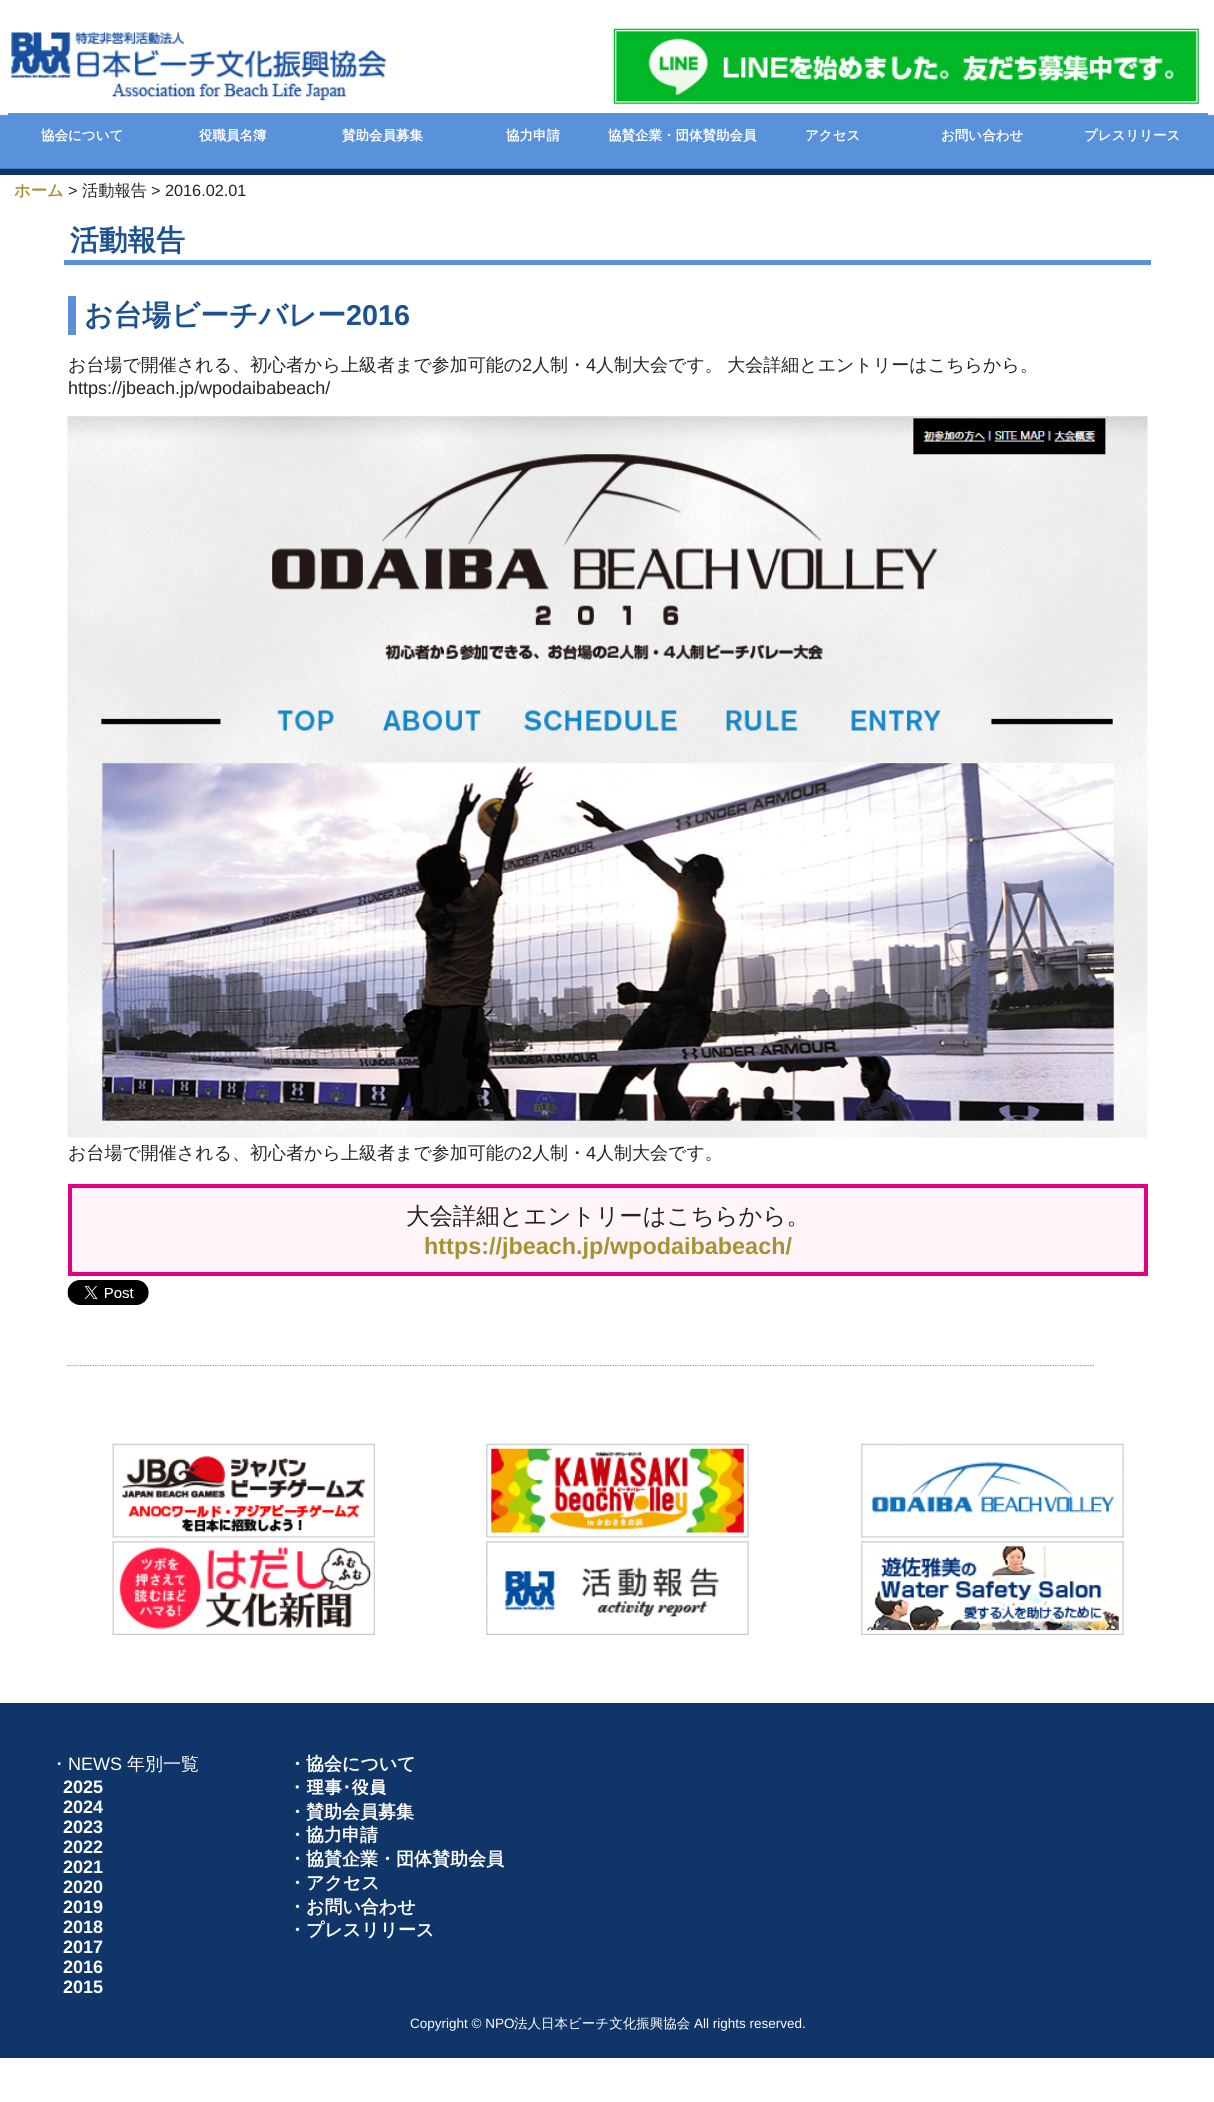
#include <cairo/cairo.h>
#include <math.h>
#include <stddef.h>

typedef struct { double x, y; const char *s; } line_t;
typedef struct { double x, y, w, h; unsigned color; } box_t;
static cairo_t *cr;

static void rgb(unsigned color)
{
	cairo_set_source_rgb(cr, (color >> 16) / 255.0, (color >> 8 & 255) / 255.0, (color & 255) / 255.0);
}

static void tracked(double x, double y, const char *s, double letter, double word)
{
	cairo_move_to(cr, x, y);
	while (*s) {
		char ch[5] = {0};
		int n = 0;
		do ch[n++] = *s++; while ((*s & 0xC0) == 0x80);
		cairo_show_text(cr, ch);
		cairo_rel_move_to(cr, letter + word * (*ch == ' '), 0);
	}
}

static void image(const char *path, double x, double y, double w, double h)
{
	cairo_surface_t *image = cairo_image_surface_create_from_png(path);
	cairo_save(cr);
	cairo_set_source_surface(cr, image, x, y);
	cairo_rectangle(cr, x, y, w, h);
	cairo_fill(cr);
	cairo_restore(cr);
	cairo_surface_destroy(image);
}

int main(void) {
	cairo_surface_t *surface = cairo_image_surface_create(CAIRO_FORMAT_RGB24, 1214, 2102);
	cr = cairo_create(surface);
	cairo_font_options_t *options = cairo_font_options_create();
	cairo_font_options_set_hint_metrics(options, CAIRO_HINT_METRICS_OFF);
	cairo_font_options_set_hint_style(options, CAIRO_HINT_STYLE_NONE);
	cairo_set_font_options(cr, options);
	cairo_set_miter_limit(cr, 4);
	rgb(0xffffff);
	cairo_paint(cr);
	image("img/1.png", 0, 114, 1214, 61);
	image("img/2.png", 11, 32, 376, 69);
	image("img/3.png", 613, 28, 586, 76);
	{
		static const box_t items[] = {
			{8, 113, 1200, 3, 0x5a91db},
			{64, 260, 1087, 5, 0x5a91db},
			{68, 296, 8, 39, 0x5a91db},
		};
		for (size_t i = 0; i < sizeof items / sizeof *items; i++) {
			rgb(items[i].color);
			cairo_rectangle(cr, items[i].x, items[i].y, items[i].w, items[i].h);
			cairo_fill(cr);
		}
	}
	image("img/4.png", 67, 416, 1081, 722);
	rgb(0xfff4fa);
	cairo_rectangle(cr, 70, 1186, 1076, 88);
	cairo_fill_preserve(cr);
	rgb(0xe4007f);
	cairo_set_line_width(cr, 4);
	cairo_stroke(cr);
	image("img/5.png", 67, 1280, 82, 25);
	cairo_new_path(cr);
	cairo_move_to(cr, 67.5, 1365.5);
	cairo_line_to(cr, 1094, 1365.5);
	rgb(0x989898);
	cairo_set_line_width(cr, 1.2);
	cairo_set_dash(cr, (double[]){1.25, 1.25}, 2, 0);
	cairo_stroke(cr);
	image("img/6.png", 112, 1443, 263, 95);
	image("img/7.png", 112, 1541, 263, 94);
	image("img/8.png", 486, 1443, 263, 95);
	image("img/9.png", 486, 1541, 263, 94);
	image("img/10.png", 861, 1443, 263, 95);
	image("img/11.png", 861, 1541, 263, 94);
	rgb(0x103568);
	cairo_rectangle(cr, 0, 1703, 1214, 355);
	cairo_fill(cr);
	cairo_select_font_face(cr, "WenQuanYi Zen Hei", CAIRO_FONT_SLANT_NORMAL, CAIRO_FONT_WEIGHT_BOLD);
	cairo_set_font_size(cr, 13.5);
	rgb(0xffffff);
	{
		static const line_t items[] = {
			{41, 140, "協会について"},
			{199, 140, "役職員名簿"},
			{342, 140, "賛助会員募集"},
			{506, 140, "協力申請"},
			{608, 140, "協賛企業・団体賛助会員"},
			{805, 140, "アクセス"},
			{941, 140, "お問い合わせ"},
			{1084, 140, "プレスリリース"},
		};
		for (size_t i = 0; i < sizeof items / sizeof *items; i++) {
			cairo_move_to(cr, items[i].x, items[i].y);
			cairo_show_text(cr, items[i].s);
		}
	}
	cairo_set_font_size(cr, 16.25);
	rgb(0xa69133);
	cairo_move_to(cr, 14, 196);
	cairo_show_text(cr, "ホーム");
	cairo_select_font_face(cr, "Liberation Sans", CAIRO_FONT_SLANT_NORMAL, CAIRO_FONT_WEIGHT_NORMAL);
	rgb(0x242424);
	cairo_move_to(cr, 68, 196);
	cairo_show_text(cr, ">");
	cairo_select_font_face(cr, "WenQuanYi Zen Hei Medium", CAIRO_FONT_SLANT_NORMAL, CAIRO_FONT_WEIGHT_NORMAL);
	cairo_move_to(cr, 82, 196);
	cairo_show_text(cr, "活動報告");
	cairo_select_font_face(cr, "Liberation Sans", CAIRO_FONT_SLANT_NORMAL, CAIRO_FONT_WEIGHT_NORMAL);
	cairo_move_to(cr, 151, 196);
	cairo_show_text(cr, "> 2016.02.01");
	cairo_select_font_face(cr, "WenQuanYi Zen Hei", CAIRO_FONT_SLANT_NORMAL, CAIRO_FONT_WEIGHT_BOLD);
	cairo_set_font_size(cr, 28.75);
	rgb(0x1d5290);
	cairo_move_to(cr, 70, 250);
	cairo_show_text(cr, "活動報告");
	cairo_move_to(cr, 84, 325);
	cairo_show_text(cr, "お台場ビーチバレー");
	cairo_select_font_face(cr, "Liberation Sans", CAIRO_FONT_SLANT_NORMAL, CAIRO_FONT_WEIGHT_BOLD);
	cairo_move_to(cr, 346, 325);
	cairo_show_text(cr, "2016");
	cairo_select_font_face(cr, "WenQuanYi Zen Hei Medium", CAIRO_FONT_SLANT_NORMAL, CAIRO_FONT_WEIGHT_NORMAL);
	cairo_set_font_size(cr, 18);
	rgb(0x242424);
	cairo_move_to(cr, 68, 371);
	cairo_show_text(cr, "お台場で開催される、初心者から上級者まで参加可能の");
	cairo_select_font_face(cr, "Liberation Sans", CAIRO_FONT_SLANT_NORMAL, CAIRO_FONT_WEIGHT_NORMAL);
	cairo_move_to(cr, 522, 371);
	cairo_show_text(cr, "2");
	cairo_select_font_face(cr, "WenQuanYi Zen Hei Medium", CAIRO_FONT_SLANT_NORMAL, CAIRO_FONT_WEIGHT_NORMAL);
	cairo_move_to(cr, 532, 371);
	cairo_show_text(cr, "人制・");
	cairo_select_font_face(cr, "Liberation Sans", CAIRO_FONT_SLANT_NORMAL, CAIRO_FONT_WEIGHT_NORMAL);
	cairo_move_to(cr, 586, 371);
	cairo_show_text(cr, "4");
	cairo_select_font_face(cr, "WenQuanYi Zen Hei Medium", CAIRO_FONT_SLANT_NORMAL, CAIRO_FONT_WEIGHT_NORMAL);
	tracked(596, 371, "人制大会です。 大会詳細とエントリーはこちらから。", 0, -1);
	cairo_select_font_face(cr, "Liberation Sans", CAIRO_FONT_SLANT_NORMAL, CAIRO_FONT_WEIGHT_NORMAL);
	cairo_move_to(cr, 68, 394);
	cairo_show_text(cr, "https://jbeach.jp/wpodaibabeach/");
	cairo_select_font_face(cr, "WenQuanYi Zen Hei Medium", CAIRO_FONT_SLANT_NORMAL, CAIRO_FONT_WEIGHT_NORMAL);
	cairo_move_to(cr, 68, 1159);
	cairo_show_text(cr, "お台場で開催される、初心者から上級者まで参加可能の");
	cairo_select_font_face(cr, "Liberation Sans", CAIRO_FONT_SLANT_NORMAL, CAIRO_FONT_WEIGHT_NORMAL);
	cairo_move_to(cr, 522, 1159);
	cairo_show_text(cr, "2");
	cairo_select_font_face(cr, "WenQuanYi Zen Hei Medium", CAIRO_FONT_SLANT_NORMAL, CAIRO_FONT_WEIGHT_NORMAL);
	cairo_move_to(cr, 532, 1159);
	cairo_show_text(cr, "人制・");
	cairo_select_font_face(cr, "Liberation Sans", CAIRO_FONT_SLANT_NORMAL, CAIRO_FONT_WEIGHT_NORMAL);
	cairo_move_to(cr, 586, 1159);
	cairo_show_text(cr, "4");
	cairo_select_font_face(cr, "WenQuanYi Zen Hei Medium", CAIRO_FONT_SLANT_NORMAL, CAIRO_FONT_WEIGHT_NORMAL);
	cairo_move_to(cr, 596, 1159);
	cairo_show_text(cr, "人制大会です。");
	cairo_set_font_size(cr, 23.4);
	cairo_move_to(cr, 406, 1224);
	cairo_show_text(cr, "大会詳細とエントリーはこちらから。");
	cairo_select_font_face(cr, "Liberation Sans", CAIRO_FONT_SLANT_NORMAL, CAIRO_FONT_WEIGHT_BOLD);
	rgb(0xa69133);
	cairo_move_to(cr, 424, 1254);
	cairo_show_text(cr, "https://jbeach.jp/wpodaibabeach/");
	cairo_select_font_face(cr, "WenQuanYi Zen Hei Medium", CAIRO_FONT_SLANT_NORMAL, CAIRO_FONT_WEIGHT_NORMAL);
	cairo_set_font_size(cr, 18);
	rgb(0xffffff);
	cairo_move_to(cr, 50, 1770);
	cairo_show_text(cr, "・");
	cairo_select_font_face(cr, "Liberation Sans", CAIRO_FONT_SLANT_NORMAL, CAIRO_FONT_WEIGHT_NORMAL);
	cairo_move_to(cr, 68, 1770);
	cairo_show_text(cr, "NEWS");
	cairo_select_font_face(cr, "WenQuanYi Zen Hei Medium", CAIRO_FONT_SLANT_NORMAL, CAIRO_FONT_WEIGHT_NORMAL);
	cairo_move_to(cr, 127, 1770);
	cairo_show_text(cr, "年別一覧");
	cairo_select_font_face(cr, "Liberation Sans", CAIRO_FONT_SLANT_NORMAL, CAIRO_FONT_WEIGHT_BOLD);
	{
		static const line_t items[] = {
			{63, 1793, "2025"},
			{63, 1813, "2024"},
			{63, 1833, "2023"},
			{63, 1853, "2022"},
			{63, 1873, "2021"},
			{63, 1893, "2020"},
			{63, 1913, "2019"},
			{63, 1933, "2018"},
			{63, 1953, "2017"},
			{63, 1973, "2016"},
			{63, 1993, "2015"},
		};
		for (size_t i = 0; i < sizeof items / sizeof *items; i++) {
			cairo_move_to(cr, items[i].x, items[i].y);
			cairo_show_text(cr, items[i].s);
		}
	}
	cairo_select_font_face(cr, "WenQuanYi Zen Hei", CAIRO_FONT_SLANT_NORMAL, CAIRO_FONT_WEIGHT_BOLD);
	cairo_move_to(cr, 288, 1770);
	cairo_show_text(cr, "・協会について");
	cairo_select_font_face(cr, "IPAGothic", CAIRO_FONT_SLANT_NORMAL, CAIRO_FONT_WEIGHT_BOLD);
	cairo_move_to(cr, 288, 1794);
	cairo_show_text(cr, "・理事･役員");
	cairo_select_font_face(cr, "WenQuanYi Zen Hei", CAIRO_FONT_SLANT_NORMAL, CAIRO_FONT_WEIGHT_BOLD);
	{
		static const line_t items[] = {
			{288, 1818, "・賛助会員募集"},
			{288, 1841, "・協力申請"},
			{288, 1865, "・協賛企業・団体賛助会員"},
			{288, 1889, "・アクセス"},
			{288, 1913, "・お問い合わせ"},
			{288, 1936, "・プレスリリース"},
		};
		for (size_t i = 0; i < sizeof items / sizeof *items; i++) {
			cairo_move_to(cr, items[i].x, items[i].y);
			cairo_show_text(cr, items[i].s);
		}
	}
	cairo_select_font_face(cr, "Liberation Sans", CAIRO_FONT_SLANT_NORMAL, CAIRO_FONT_WEIGHT_NORMAL);
	cairo_set_font_size(cr, 13.5);
	cairo_move_to(cr, 410, 2028);
	cairo_show_text(cr, "Copyright © NPO");
	cairo_select_font_face(cr, "WenQuanYi Zen Hei Medium", CAIRO_FONT_SLANT_NORMAL, CAIRO_FONT_WEIGHT_NORMAL);
	cairo_move_to(cr, 514, 2028);
	cairo_show_text(cr, "法人日本ビーチ文化振興協会");
	cairo_select_font_face(cr, "Liberation Sans", CAIRO_FONT_SLANT_NORMAL, CAIRO_FONT_WEIGHT_NORMAL);
	cairo_move_to(cr, 694, 2028);
	cairo_show_text(cr, "All rights reserved.");
	cairo_surface_write_to_png(surface, "page.png");
	cairo_font_options_destroy(options);
	cairo_destroy(cr);
	cairo_surface_destroy(surface);
	return 0;
}
